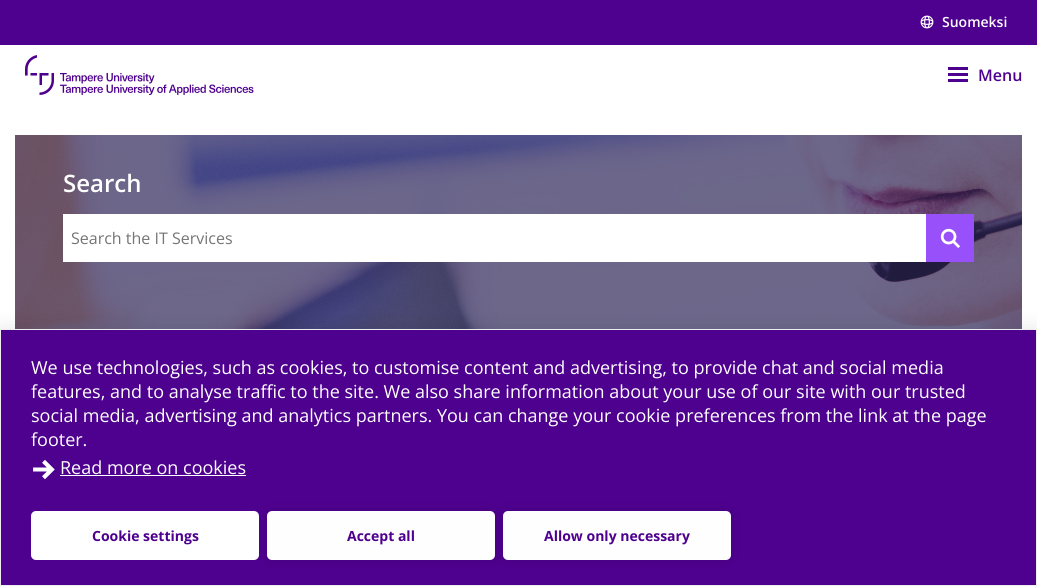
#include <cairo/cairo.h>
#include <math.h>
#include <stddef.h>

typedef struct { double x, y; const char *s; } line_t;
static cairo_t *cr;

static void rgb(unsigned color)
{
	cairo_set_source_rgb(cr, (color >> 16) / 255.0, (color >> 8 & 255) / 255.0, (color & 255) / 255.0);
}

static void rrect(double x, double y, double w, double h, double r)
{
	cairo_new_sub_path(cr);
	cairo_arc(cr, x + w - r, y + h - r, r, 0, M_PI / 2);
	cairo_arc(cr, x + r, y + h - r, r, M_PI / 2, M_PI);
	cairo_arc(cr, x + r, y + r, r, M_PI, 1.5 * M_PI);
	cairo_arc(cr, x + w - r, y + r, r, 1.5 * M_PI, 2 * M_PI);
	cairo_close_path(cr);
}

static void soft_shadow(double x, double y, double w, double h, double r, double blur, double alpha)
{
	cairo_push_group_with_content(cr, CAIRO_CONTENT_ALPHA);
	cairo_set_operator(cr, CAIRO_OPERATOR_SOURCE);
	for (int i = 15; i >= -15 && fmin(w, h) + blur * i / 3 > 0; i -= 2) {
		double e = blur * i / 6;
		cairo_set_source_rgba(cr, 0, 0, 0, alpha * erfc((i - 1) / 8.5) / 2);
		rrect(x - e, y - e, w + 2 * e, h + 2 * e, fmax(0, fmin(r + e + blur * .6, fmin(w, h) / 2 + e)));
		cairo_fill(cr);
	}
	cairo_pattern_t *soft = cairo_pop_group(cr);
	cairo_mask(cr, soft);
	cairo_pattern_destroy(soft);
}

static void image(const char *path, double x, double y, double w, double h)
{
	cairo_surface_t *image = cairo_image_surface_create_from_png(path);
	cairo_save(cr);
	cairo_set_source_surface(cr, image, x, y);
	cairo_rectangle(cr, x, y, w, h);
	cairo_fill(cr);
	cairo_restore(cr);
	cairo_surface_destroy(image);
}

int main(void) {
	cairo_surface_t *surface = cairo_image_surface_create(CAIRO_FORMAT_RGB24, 1037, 586);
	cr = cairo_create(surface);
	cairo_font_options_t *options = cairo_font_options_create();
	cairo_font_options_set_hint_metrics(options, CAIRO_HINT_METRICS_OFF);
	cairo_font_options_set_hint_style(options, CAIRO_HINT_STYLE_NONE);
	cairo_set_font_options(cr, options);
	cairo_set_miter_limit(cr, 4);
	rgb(0xffffff);
	cairo_paint(cr);
	rgb(0x4e008e);
	cairo_rectangle(cr, 0, 0, 1037, 45);
	cairo_fill(cr);
	image("img/1.png", 920, 15, 14, 14);
	image("img/2.png", 25, 55, 229, 40);
	image("img/3.png", 948, 67, 20, 15);
	image("img/4.png", 15, 135, 1007, 194);
	rgb(0xffffff);
	cairo_rectangle(cr, 63, 214, 863, 48);
	cairo_fill(cr);
	rgb(0x9750fa);
	cairo_rectangle(cr, 926, 214, 48, 48);
	cairo_fill(cr);
	image("img/5.png", 940, 228, 20, 20);
	rgb(0x000000);
	soft_shadow(0, 329, 1037, 257, 0, 10, 0.1);
	rgb(0x4e008e);
	cairo_rectangle(cr, 0.5, 329.5, 1036, 256);
	cairo_fill_preserve(cr);
	rgb(0xeeeeee);
	cairo_set_line_width(cr, 1);
	cairo_stroke(cr);
	image("img/6.png", 33, 459, 22, 21);
	rgb(0xffffff);
	cairo_rectangle(cr, 60, 475, 186, 1);
	cairo_fill(cr);
	rrect(31, 511, 228, 49, 5);
	cairo_fill(cr);
	rgb(0x000000);
	soft_shadow(267, 511, 228, 49, 5, 5, 0.12);
	rgb(0xfffefe);
	rrect(267, 511, 228, 49, 5);
	cairo_fill(cr);
	rgb(0x000000);
	soft_shadow(503, 511, 228, 49, 5, 5, 0.12);
	rgb(0xfffefe);
	rrect(503, 511, 228, 49, 5);
	cairo_fill(cr);
	cairo_select_font_face(cr, "Open Sans SemiBold", CAIRO_FONT_SLANT_NORMAL, CAIRO_FONT_WEIGHT_NORMAL);
	cairo_set_font_size(cr, 14);
	rgb(0xffffff);
	cairo_move_to(cr, 942, 27);
	cairo_show_text(cr, "Suomeksi");
	cairo_set_font_size(cr, 16);
	rgb(0x4e008e);
	cairo_move_to(cr, 978, 81);
	cairo_show_text(cr, "Menu");
	cairo_set_font_size(cr, 24);
	rgb(0xffffff);
	cairo_move_to(cr, 63, 192);
	cairo_show_text(cr, "Search");
	cairo_select_font_face(cr, "Open Sans", CAIRO_FONT_SLANT_NORMAL, CAIRO_FONT_WEIGHT_NORMAL);
	cairo_set_font_size(cr, 16);
	rgb(0x757575);
	cairo_move_to(cr, 71, 244);
	cairo_show_text(cr, "Search the IT Services");
	cairo_set_font_size(cr, 18);
	rgb(0xffffff);
	{
		static const line_t items[] = {
			{31, 374, "We use technologies, such as cookies, to customise content and advertising, to provide chat and social media"},
			{31, 398, "features, and to analyse traffic to the site. We also share information about your use of our site with our trusted"},
			{31, 422, "social media, advertising and analytics partners. You can change your cookie preferences from the link at the page"},
			{31, 446, "footer."},
			{60, 474, "Read more on cookies"},
		};
		for (size_t i = 0; i < sizeof items / sizeof *items; i++) {
			cairo_move_to(cr, items[i].x, items[i].y);
			cairo_show_text(cr, items[i].s);
		}
	}
	cairo_select_font_face(cr, "Open Sans", CAIRO_FONT_SLANT_NORMAL, CAIRO_FONT_WEIGHT_BOLD);
	cairo_set_font_size(cr, 14);
	rgb(0x4e008e);
	{
		static const line_t items[] = {
			{92, 541, "Cookie settings"},
			{347, 541, "Accept all"},
			{544, 541, "Allow only necessary"},
		};
		for (size_t i = 0; i < sizeof items / sizeof *items; i++) {
			cairo_move_to(cr, items[i].x, items[i].y);
			cairo_show_text(cr, items[i].s);
		}
	}
	cairo_surface_write_to_png(surface, "page.png");
	cairo_font_options_destroy(options);
	cairo_destroy(cr);
	cairo_surface_destroy(surface);
	return 0;
}
